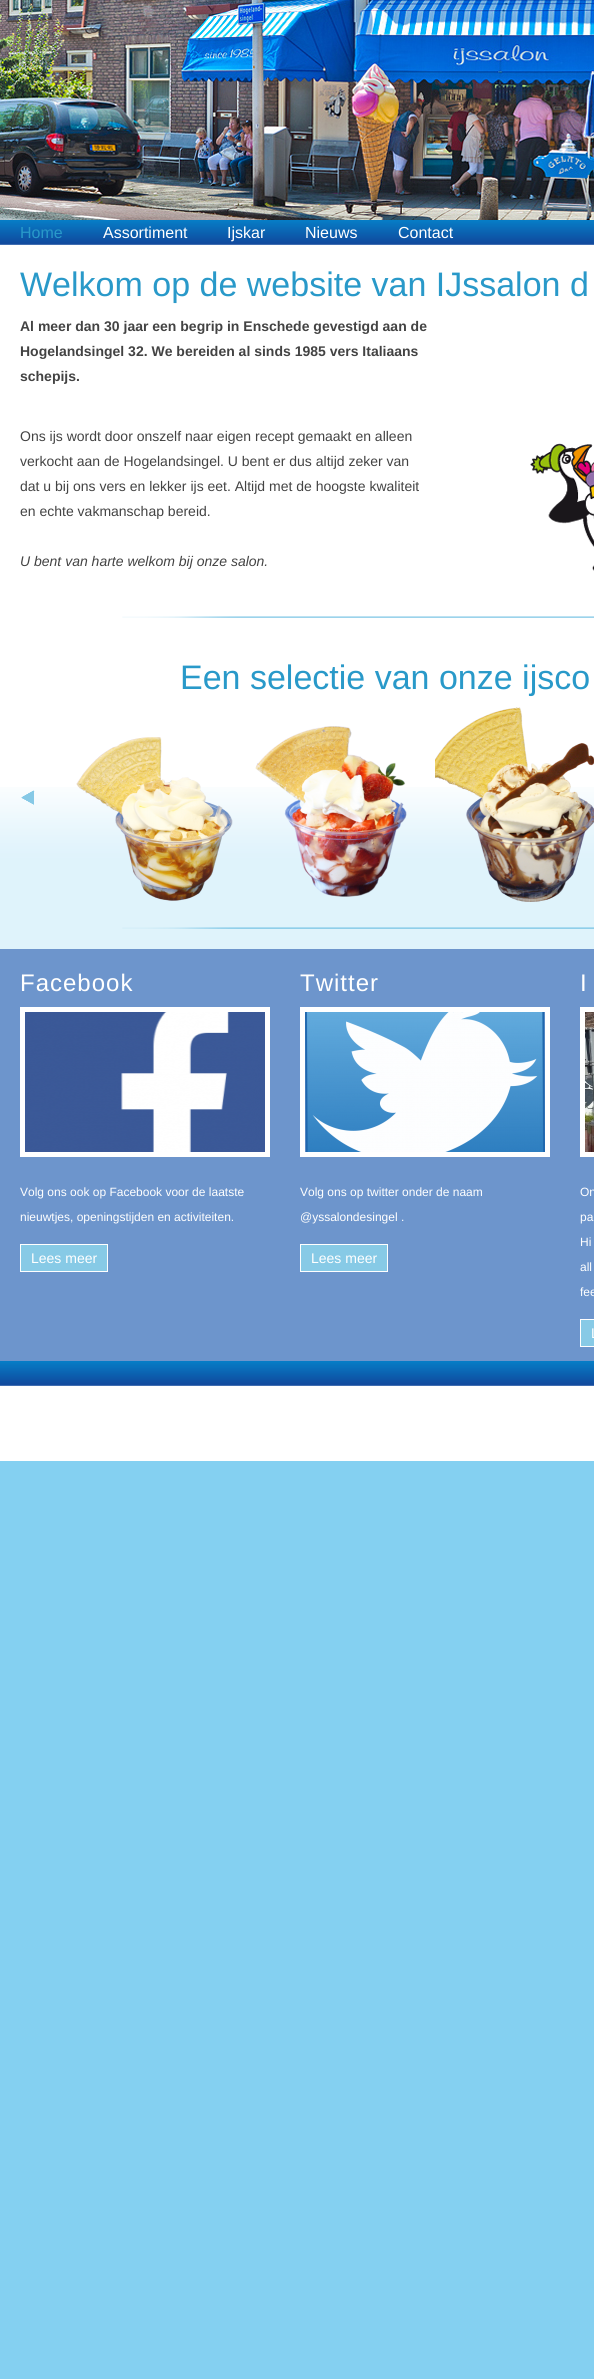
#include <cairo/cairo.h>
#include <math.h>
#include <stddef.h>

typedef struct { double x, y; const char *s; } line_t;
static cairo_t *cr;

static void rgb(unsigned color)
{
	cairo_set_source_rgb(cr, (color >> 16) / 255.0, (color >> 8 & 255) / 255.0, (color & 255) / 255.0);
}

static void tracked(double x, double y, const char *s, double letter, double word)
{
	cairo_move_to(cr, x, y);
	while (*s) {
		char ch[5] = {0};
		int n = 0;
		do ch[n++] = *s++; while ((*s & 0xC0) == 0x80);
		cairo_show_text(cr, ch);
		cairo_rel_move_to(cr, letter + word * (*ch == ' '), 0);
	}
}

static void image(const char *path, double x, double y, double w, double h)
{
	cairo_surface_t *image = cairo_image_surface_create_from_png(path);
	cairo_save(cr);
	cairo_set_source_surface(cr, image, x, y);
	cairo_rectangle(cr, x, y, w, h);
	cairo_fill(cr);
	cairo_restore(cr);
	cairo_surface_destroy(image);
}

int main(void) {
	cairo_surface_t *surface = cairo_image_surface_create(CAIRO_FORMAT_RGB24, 594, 2379);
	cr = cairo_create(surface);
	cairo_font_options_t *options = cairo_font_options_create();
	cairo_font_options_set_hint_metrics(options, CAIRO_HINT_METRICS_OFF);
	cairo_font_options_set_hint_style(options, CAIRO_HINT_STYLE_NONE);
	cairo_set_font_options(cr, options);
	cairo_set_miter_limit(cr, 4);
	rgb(0xffffff);
	cairo_paint(cr);
	image("img/1.png", 0, 1461, 594, 918);
	image("img/2.png", 0, 0, 594, 220);
	image("img/3.png", 0, 220, 594, 25);
	image("img/4.png", 530, 443, 64, 128);
	image("img/5.png", 122, 616, 472, 2);
	image("img/6.png", 0, 787, 594, 162);
	image("img/7.png", 21, 790, 14, 15);
	image("img/8.png", 76, 737, 157, 164);
	image("img/9.png", 255, 726, 152, 171);
	image("img/10.png", 435, 707, 159, 195);
	image("img/11.png", 122, 927, 472, 2);
	rgb(0x6d95cc);
	cairo_rectangle(cr, 0, 949, 594, 412);
	cairo_fill(cr);
	cairo_rectangle(cr, 22.5, 1009.5, 245, 145);
	rgb(0xffffff);
	cairo_set_line_width(cr, 5);
	cairo_stroke(cr);
	image("img/12.png", 25, 1012, 240, 140);
	rgb(0x87cae6);
	cairo_rectangle(cr, 20.5, 1244.5, 87, 27);
	cairo_fill_preserve(cr);
	rgb(0xffffff);
	cairo_set_line_width(cr, 1);
	cairo_stroke(cr);
	cairo_rectangle(cr, 302.5, 1009.5, 245, 145);
	cairo_set_line_width(cr, 5);
	cairo_stroke(cr);
	image("img/13.png", 305, 1012, 240, 140);
	rgb(0x87cae6);
	cairo_rectangle(cr, 300.5, 1244.5, 87, 27);
	cairo_fill_preserve(cr);
	rgb(0xffffff);
	cairo_set_line_width(cr, 1);
	cairo_stroke(cr);
	cairo_rectangle(cr, 582.5, 1009.5, 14, 145);
	cairo_set_line_width(cr, 5);
	cairo_stroke(cr);
	image("img/14.png", 585, 1012, 9, 140);
	rgb(0x87cae6);
	cairo_rectangle(cr, 580.5, 1319.5, 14, 27);
	cairo_fill_preserve(cr);
	rgb(0xffffff);
	cairo_set_line_width(cr, 1);
	cairo_stroke(cr);
	image("img/3.png", 0, 1361, 594, 25);
	cairo_select_font_face(cr, "Liberation Sans", CAIRO_FONT_SLANT_NORMAL, CAIRO_FONT_WEIGHT_NORMAL);
	cairo_set_font_size(cr, 16);
	rgb(0x2999c9);
	cairo_move_to(cr, 20, 238);
	cairo_show_text(cr, "Home");
	rgb(0xffffff);
	{
		static const line_t items[] = {
			{103, 238, "Assortiment"},
			{227, 238, "Ijskar"},
			{305, 238, "Nieuws"},
			{398, 238, "Contact"},
		};
		for (size_t i = 0; i < sizeof items / sizeof *items; i++) {
			cairo_move_to(cr, items[i].x, items[i].y);
			cairo_show_text(cr, items[i].s);
		}
	}
	cairo_set_font_size(cr, 34);
	rgb(0x2999c9);
	cairo_move_to(cr, 20, 296);
	cairo_show_text(cr, "Welkom op de website van IJssalon d");
	cairo_select_font_face(cr, "Liberation Sans", CAIRO_FONT_SLANT_NORMAL, CAIRO_FONT_WEIGHT_BOLD);
	cairo_set_font_size(cr, 14);
	rgb(0x434343);
	{
		static const line_t items[] = {
			{20, 331, "Al meer dan 30 jaar een begrip in Enschede gevestigd aan de"},
			{20, 356, "Hogelandsingel 32. We bereiden al sinds 1985 vers Italiaans"},
			{20, 381, "schepijs."},
		};
		for (size_t i = 0; i < sizeof items / sizeof *items; i++) {
			cairo_move_to(cr, items[i].x, items[i].y);
			cairo_show_text(cr, items[i].s);
		}
	}
	cairo_select_font_face(cr, "Liberation Sans", CAIRO_FONT_SLANT_NORMAL, CAIRO_FONT_WEIGHT_NORMAL);
	{
		static const line_t items[] = {
			{20, 441, "Ons ijs wordt door onszelf naar eigen recept gemaakt en alleen"},
			{20, 466, "verkocht aan de Hogelandsingel. U bent er dus altijd zeker van"},
			{20, 491, "dat u bij ons vers en lekker ijs eet. Altijd met de hoogste kwaliteit"},
			{20, 516, "en echte vakmanschap bereid."},
		};
		for (size_t i = 0; i < sizeof items / sizeof *items; i++) {
			cairo_move_to(cr, items[i].x, items[i].y);
			cairo_show_text(cr, items[i].s);
		}
	}
	cairo_select_font_face(cr, "Liberation Sans", CAIRO_FONT_SLANT_ITALIC, CAIRO_FONT_WEIGHT_NORMAL);
	cairo_move_to(cr, 20, 566);
	cairo_show_text(cr, "U bent van harte welkom bij onze salon.");
	cairo_select_font_face(cr, "Liberation Sans", CAIRO_FONT_SLANT_NORMAL, CAIRO_FONT_WEIGHT_NORMAL);
	cairo_set_font_size(cr, 34);
	rgb(0x2999c9);
	cairo_move_to(cr, 180, 689);
	cairo_show_text(cr, "Een selectie van onze ijsco");
	cairo_set_font_size(cr, 24);
	rgb(0xffffff);
	tracked(20, 991, "Facebook", 1, 0);
	cairo_set_font_size(cr, 12);
	cairo_move_to(cr, 20, 1196);
	cairo_show_text(cr, "Volg ons ook op Facebook voor de laatste");
	cairo_move_to(cr, 20, 1221);
	cairo_show_text(cr, "nieuwtjes, openingstijden en activiteiten.");
	cairo_set_font_size(cr, 14);
	cairo_move_to(cr, 31, 1263);
	cairo_show_text(cr, "Lees meer");
	cairo_set_font_size(cr, 24);
	tracked(300, 991, "Twitter", 1, 0);
	cairo_set_font_size(cr, 12);
	cairo_move_to(cr, 300, 1196);
	cairo_show_text(cr, "Volg ons op twitter onder de naam");
	cairo_move_to(cr, 300, 1221);
	cairo_show_text(cr, "@yssalondesingel .");
	cairo_set_font_size(cr, 14);
	cairo_move_to(cr, 311, 1263);
	cairo_show_text(cr, "Lees meer");
	cairo_set_font_size(cr, 24);
	tracked(580, 991, "I", 1, 0);
	cairo_set_font_size(cr, 12);
	{
		static const line_t items[] = {
			{580, 1196, "On"},
			{580, 1221, "pa"},
			{580, 1246, "Hi"},
			{580, 1271, "all"},
			{580, 1296, "fee"},
		};
		for (size_t i = 0; i < sizeof items / sizeof *items; i++) {
			cairo_move_to(cr, items[i].x, items[i].y);
			cairo_show_text(cr, items[i].s);
		}
	}
	cairo_set_font_size(cr, 14);
	cairo_move_to(cr, 591, 1338);
	cairo_show_text(cr, "L");
	cairo_surface_write_to_png(surface, "page.png");
	cairo_font_options_destroy(options);
	cairo_destroy(cr);
	cairo_surface_destroy(surface);
	return 0;
}
